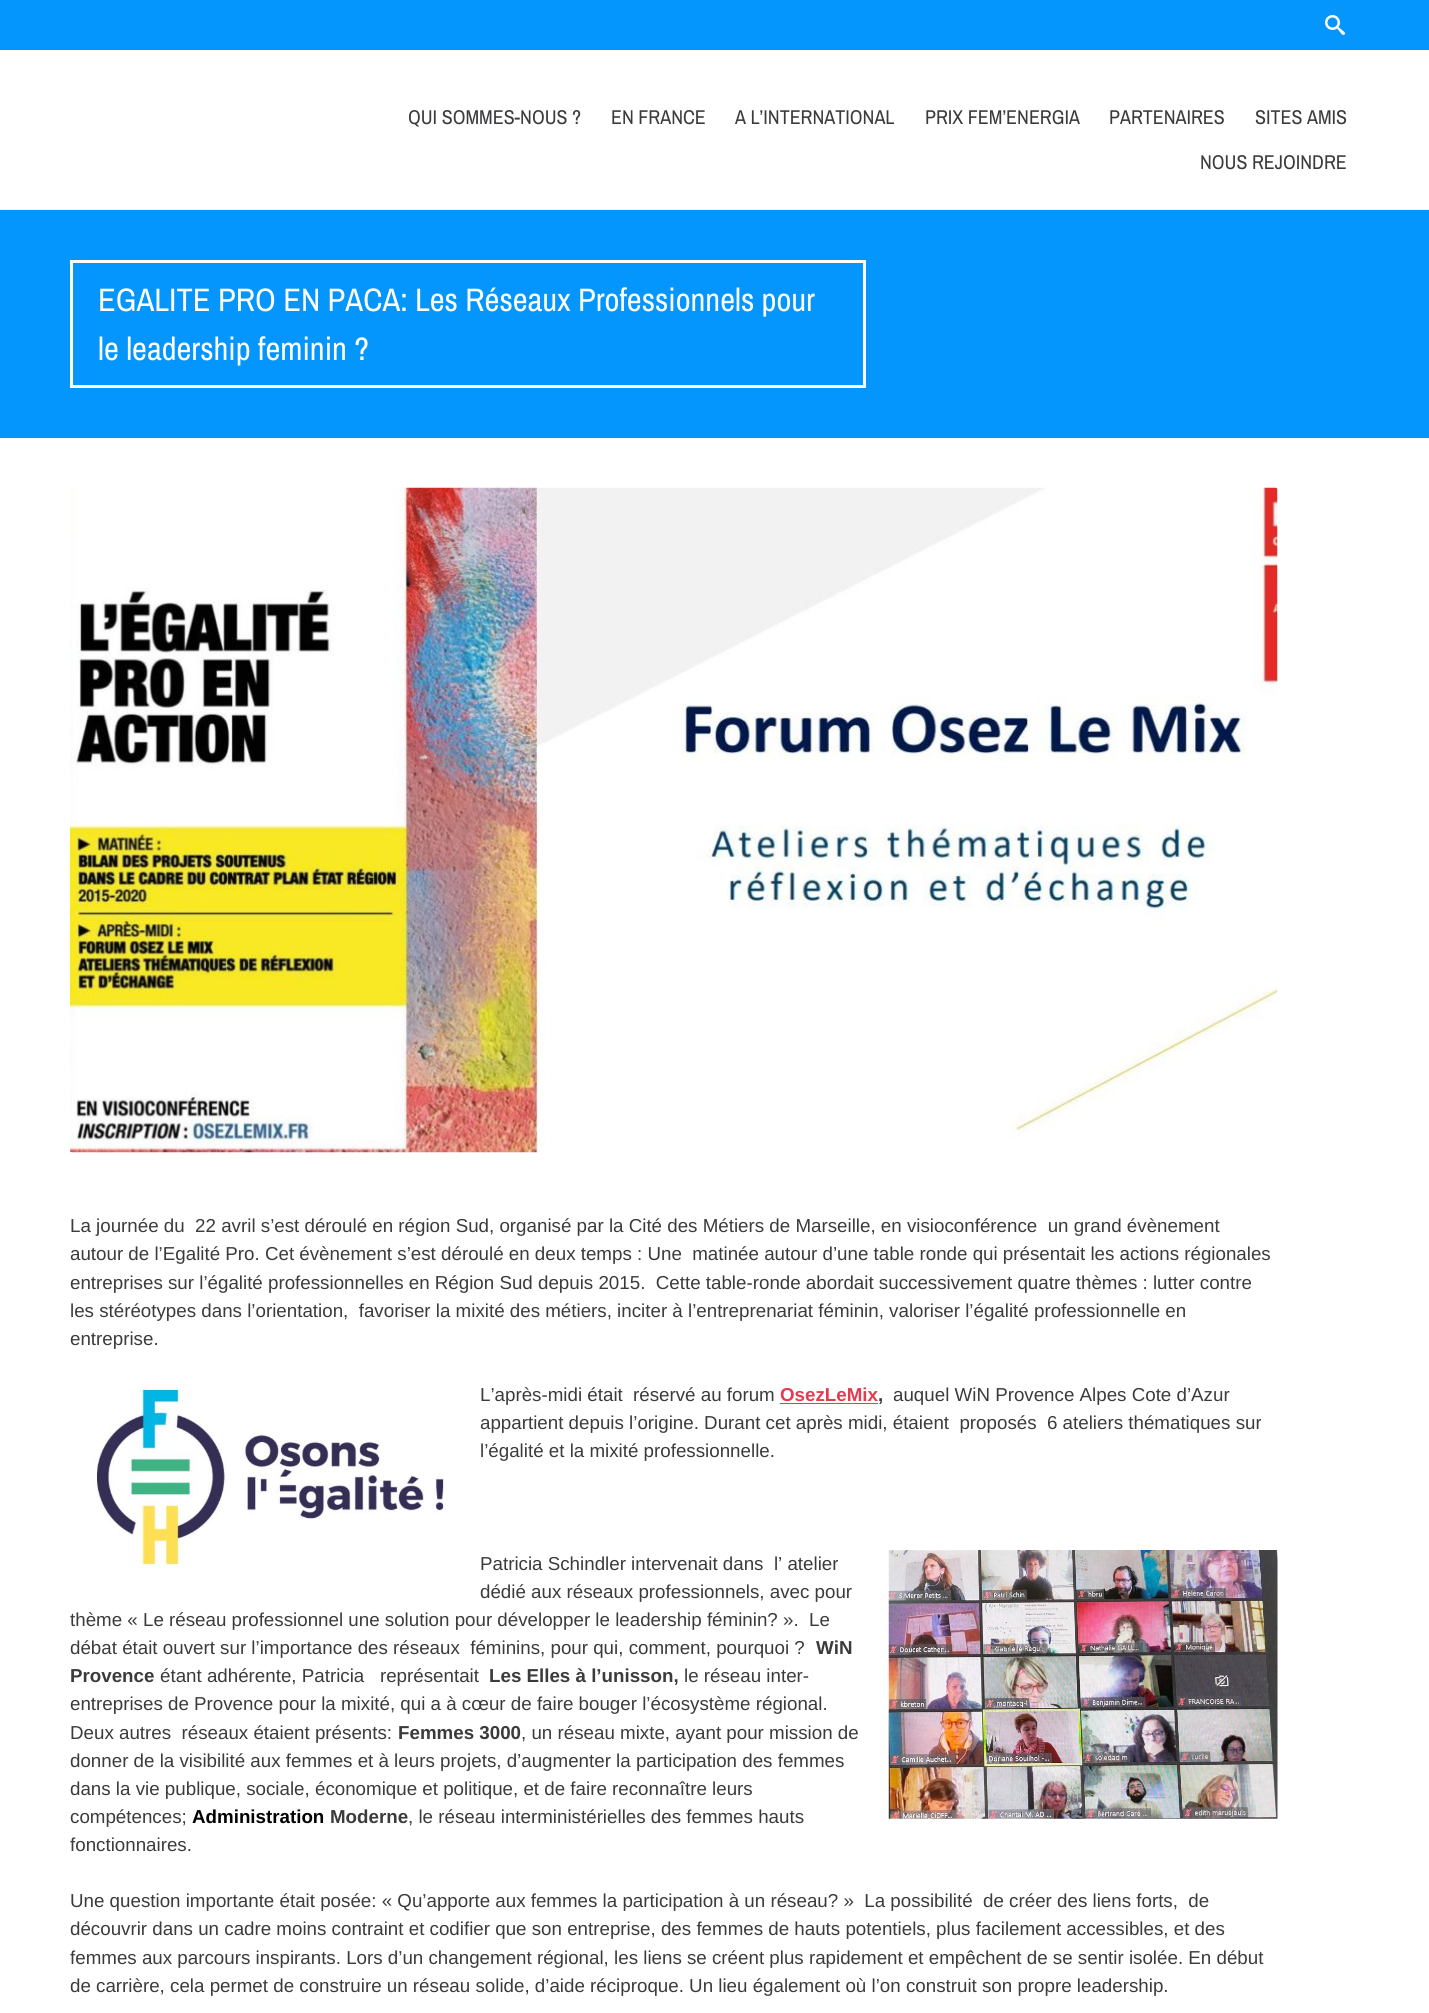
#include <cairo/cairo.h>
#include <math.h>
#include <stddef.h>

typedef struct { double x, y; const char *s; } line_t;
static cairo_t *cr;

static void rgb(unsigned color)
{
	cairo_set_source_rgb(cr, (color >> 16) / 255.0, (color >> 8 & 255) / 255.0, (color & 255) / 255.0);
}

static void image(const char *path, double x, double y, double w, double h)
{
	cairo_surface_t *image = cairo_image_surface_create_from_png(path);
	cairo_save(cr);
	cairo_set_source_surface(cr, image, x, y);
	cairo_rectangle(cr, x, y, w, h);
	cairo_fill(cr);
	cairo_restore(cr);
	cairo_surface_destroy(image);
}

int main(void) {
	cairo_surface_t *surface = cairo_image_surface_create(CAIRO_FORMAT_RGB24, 1429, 2013);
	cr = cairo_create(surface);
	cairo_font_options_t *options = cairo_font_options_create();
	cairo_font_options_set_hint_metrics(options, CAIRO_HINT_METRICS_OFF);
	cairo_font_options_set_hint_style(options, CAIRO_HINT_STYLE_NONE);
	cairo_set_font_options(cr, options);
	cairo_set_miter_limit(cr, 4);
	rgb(0xffffff);
	cairo_paint(cr);
	rgb(0x0496fc);
	cairo_rectangle(cr, 0, 0, 1429, 50);
	cairo_fill(cr);
	image("img/1.png", 1325, 15, 20, 20);
	rgb(0xf3f3f3);
	cairo_rectangle(cr, 0, 209, 1429, 1);
	cairo_fill(cr);
	rgb(0x0496fc);
	cairo_rectangle(cr, 0, 210, 1429, 228);
	cairo_fill(cr);
	cairo_rectangle(cr, 71.5, 261.5, 793, 125);
	rgb(0xffffff);
	cairo_set_line_width(cr, 3);
	cairo_stroke(cr);
	image("img/2.png", 70, 487, 1208, 666);
	image("img/3.png", 90, 1381, 354, 188);
	rgb(0xe53b51);
	cairo_rectangle(cr, 780, 1403, 98, 1);
	cairo_fill(cr);
	image("img/4.png", 888, 1550, 390, 269);
	cairo_select_font_face(cr, "Archivo Narrow", CAIRO_FONT_SLANT_NORMAL, CAIRO_FONT_WEIGHT_NORMAL);
	cairo_set_font_size(cr, 20);
	rgb(0x3b3b3d);
	{
		static const line_t items[] = {
			{408, 124, "QUI SOMMES-NOUS ?"},
			{611, 124, "EN FRANCE"},
			{735, 124, "A L’INTERNATIONAL"},
			{925, 124, "PRIX FEM’ENERGIA"},
			{1109, 124, "PARTENAIRES"},
			{1255, 124, "SITES AMIS"},
			{1200, 169, "NOUS REJOINDRE"},
		};
		for (size_t i = 0; i < sizeof items / sizeof *items; i++) {
			cairo_move_to(cr, items[i].x, items[i].y);
			cairo_show_text(cr, items[i].s);
		}
	}
	cairo_set_font_size(cr, 32.5);
	rgb(0xffffff);
	cairo_move_to(cr, 98, 311);
	cairo_show_text(cr, "EGALITE PRO EN PACA: Les Réseaux Professionnels pour");
	cairo_move_to(cr, 98, 360);
	cairo_show_text(cr, "le leadership feminin ?");
	cairo_select_font_face(cr, "Liberation Sans", CAIRO_FONT_SLANT_NORMAL, CAIRO_FONT_WEIGHT_NORMAL);
	cairo_set_font_size(cr, 18.75);
	rgb(0x3b3b3d);
	{
		static const line_t items[] = {
			{70, 1232, "La journée du  22 avril s’est déroulé en région Sud, organisé par la Cité des Métiers de Marseille, en visioconférence  un grand évènement"},
			{70, 1260, "autour de l’Egalité Pro. Cet évènement s’est déroulé en deux temps : Une  matinée autour d’une table ronde qui présentait les actions régionales"},
			{70, 1289, "entreprises sur l’égalité professionnelles en Région Sud depuis 2015.  Cette table-ronde abordait successivement quatre thèmes : lutter contre"},
			{70, 1317, "les stéréotypes dans l’orientation,  favoriser la mixité des métiers, inciter à l’entreprenariat féminin, valoriser l’égalité professionnelle en"},
			{70, 1345, "entreprise."},
			{480, 1401, "L’après-midi était"},
			{633, 1401, "réservé au forum"},
		};
		for (size_t i = 0; i < sizeof items / sizeof *items; i++) {
			cairo_move_to(cr, items[i].x, items[i].y);
			cairo_show_text(cr, items[i].s);
		}
	}
	cairo_select_font_face(cr, "Liberation Sans", CAIRO_FONT_SLANT_NORMAL, CAIRO_FONT_WEIGHT_BOLD);
	rgb(0xe53b51);
	cairo_move_to(cr, 780, 1401);
	cairo_show_text(cr, "OsezLeMix");
	rgb(0x3b3b3d);
	cairo_move_to(cr, 878, 1401);
	cairo_show_text(cr, ",");
	cairo_select_font_face(cr, "Liberation Sans", CAIRO_FONT_SLANT_NORMAL, CAIRO_FONT_WEIGHT_NORMAL);
	{
		static const line_t items[] = {
			{893, 1401, "auquel WiN Provence Alpes Cote d’Azur"},
			{480, 1429, "appartient depuis l’origine. Durant cet après midi, étaient  proposés  6 ateliers thématiques sur"},
			{480, 1457, "l’égalité et la mixité professionnelle."},
			{480, 1570, "Patricia Schindler intervenait dans  l’ atelier"},
			{480, 1598, "dédié aux réseaux professionnels, avec pour"},
			{70, 1626, "thème « Le réseau professionnel une solution pour développer le leadership féminin? ».  Le"},
			{70, 1654, "débat était ouvert sur l’importance des réseaux  féminins, pour qui, comment, pourquoi ?"},
		};
		for (size_t i = 0; i < sizeof items / sizeof *items; i++) {
			cairo_move_to(cr, items[i].x, items[i].y);
			cairo_show_text(cr, items[i].s);
		}
	}
	cairo_select_font_face(cr, "Liberation Sans", CAIRO_FONT_SLANT_NORMAL, CAIRO_FONT_WEIGHT_BOLD);
	cairo_move_to(cr, 816, 1654);
	cairo_show_text(cr, "WiN");
	cairo_move_to(cr, 70, 1682);
	cairo_show_text(cr, "Provence");
	cairo_select_font_face(cr, "Liberation Sans", CAIRO_FONT_SLANT_NORMAL, CAIRO_FONT_WEIGHT_NORMAL);
	cairo_move_to(cr, 160, 1682);
	cairo_show_text(cr, "étant adhérente, Patricia   représentait");
	cairo_select_font_face(cr, "Liberation Sans", CAIRO_FONT_SLANT_NORMAL, CAIRO_FONT_WEIGHT_BOLD);
	cairo_move_to(cr, 489, 1682);
	cairo_show_text(cr, "Les Elles à l’unisson,");
	cairo_select_font_face(cr, "Liberation Sans", CAIRO_FONT_SLANT_NORMAL, CAIRO_FONT_WEIGHT_NORMAL);
	{
		static const line_t items[] = {
			{684, 1682, "le réseau inter-"},
			{70, 1710, "entreprises de Provence pour la mixité, qui a à cœur de faire bouger l’écosystème régional."},
			{70, 1739, "Deux autres  réseaux étaient présents:"},
		};
		for (size_t i = 0; i < sizeof items / sizeof *items; i++) {
			cairo_move_to(cr, items[i].x, items[i].y);
			cairo_show_text(cr, items[i].s);
		}
	}
	cairo_select_font_face(cr, "Liberation Sans", CAIRO_FONT_SLANT_NORMAL, CAIRO_FONT_WEIGHT_BOLD);
	cairo_move_to(cr, 398, 1739);
	cairo_show_text(cr, "Femmes 3000");
	cairo_select_font_face(cr, "Liberation Sans", CAIRO_FONT_SLANT_NORMAL, CAIRO_FONT_WEIGHT_NORMAL);
	{
		static const line_t items[] = {
			{521, 1739, ", un réseau mixte, ayant pour mission de"},
			{70, 1767, "donner de la visibilité aux femmes et à leurs projets, d’augmenter la participation des femmes"},
			{70, 1795, "dans la vie publique, sociale, économique et politique, et de faire reconnaître leurs"},
			{70, 1823, "compétences;"},
		};
		for (size_t i = 0; i < sizeof items / sizeof *items; i++) {
			cairo_move_to(cr, items[i].x, items[i].y);
			cairo_show_text(cr, items[i].s);
		}
	}
	cairo_select_font_face(cr, "Liberation Sans", CAIRO_FONT_SLANT_NORMAL, CAIRO_FONT_WEIGHT_BOLD);
	rgb(0x000000);
	cairo_move_to(cr, 192, 1823);
	cairo_show_text(cr, "Administration");
	rgb(0x3b3b3d);
	cairo_move_to(cr, 330, 1823);
	cairo_show_text(cr, "Moderne");
	cairo_select_font_face(cr, "Liberation Sans", CAIRO_FONT_SLANT_NORMAL, CAIRO_FONT_WEIGHT_NORMAL);
	{
		static const line_t items[] = {
			{408, 1823, ", le réseau interministérielles des femmes hauts"},
			{70, 1851, "fonctionnaires."},
			{70, 1907, "Une question importante était posée: « Qu’apporte aux femmes la participation à un réseau? »  La possibilité  de créer des liens forts,  de"},
			{70, 1935, "découvrir dans un cadre moins contraint et codifier que son entreprise, des femmes de hauts potentiels, plus facilement accessibles, et des"},
			{70, 1964, "femmes aux parcours inspirants. Lors d’un changement régional, les liens se créent plus rapidement et empêchent de se sentir isolée. En début"},
			{70, 1992, "de carrière, cela permet de construire un réseau solide, d’aide réciproque. Un lieu également où l’on construit son propre leadership."},
		};
		for (size_t i = 0; i < sizeof items / sizeof *items; i++) {
			cairo_move_to(cr, items[i].x, items[i].y);
			cairo_show_text(cr, items[i].s);
		}
	}
	cairo_surface_write_to_png(surface, "page.png");
	cairo_font_options_destroy(options);
	cairo_destroy(cr);
	cairo_surface_destroy(surface);
	return 0;
}
